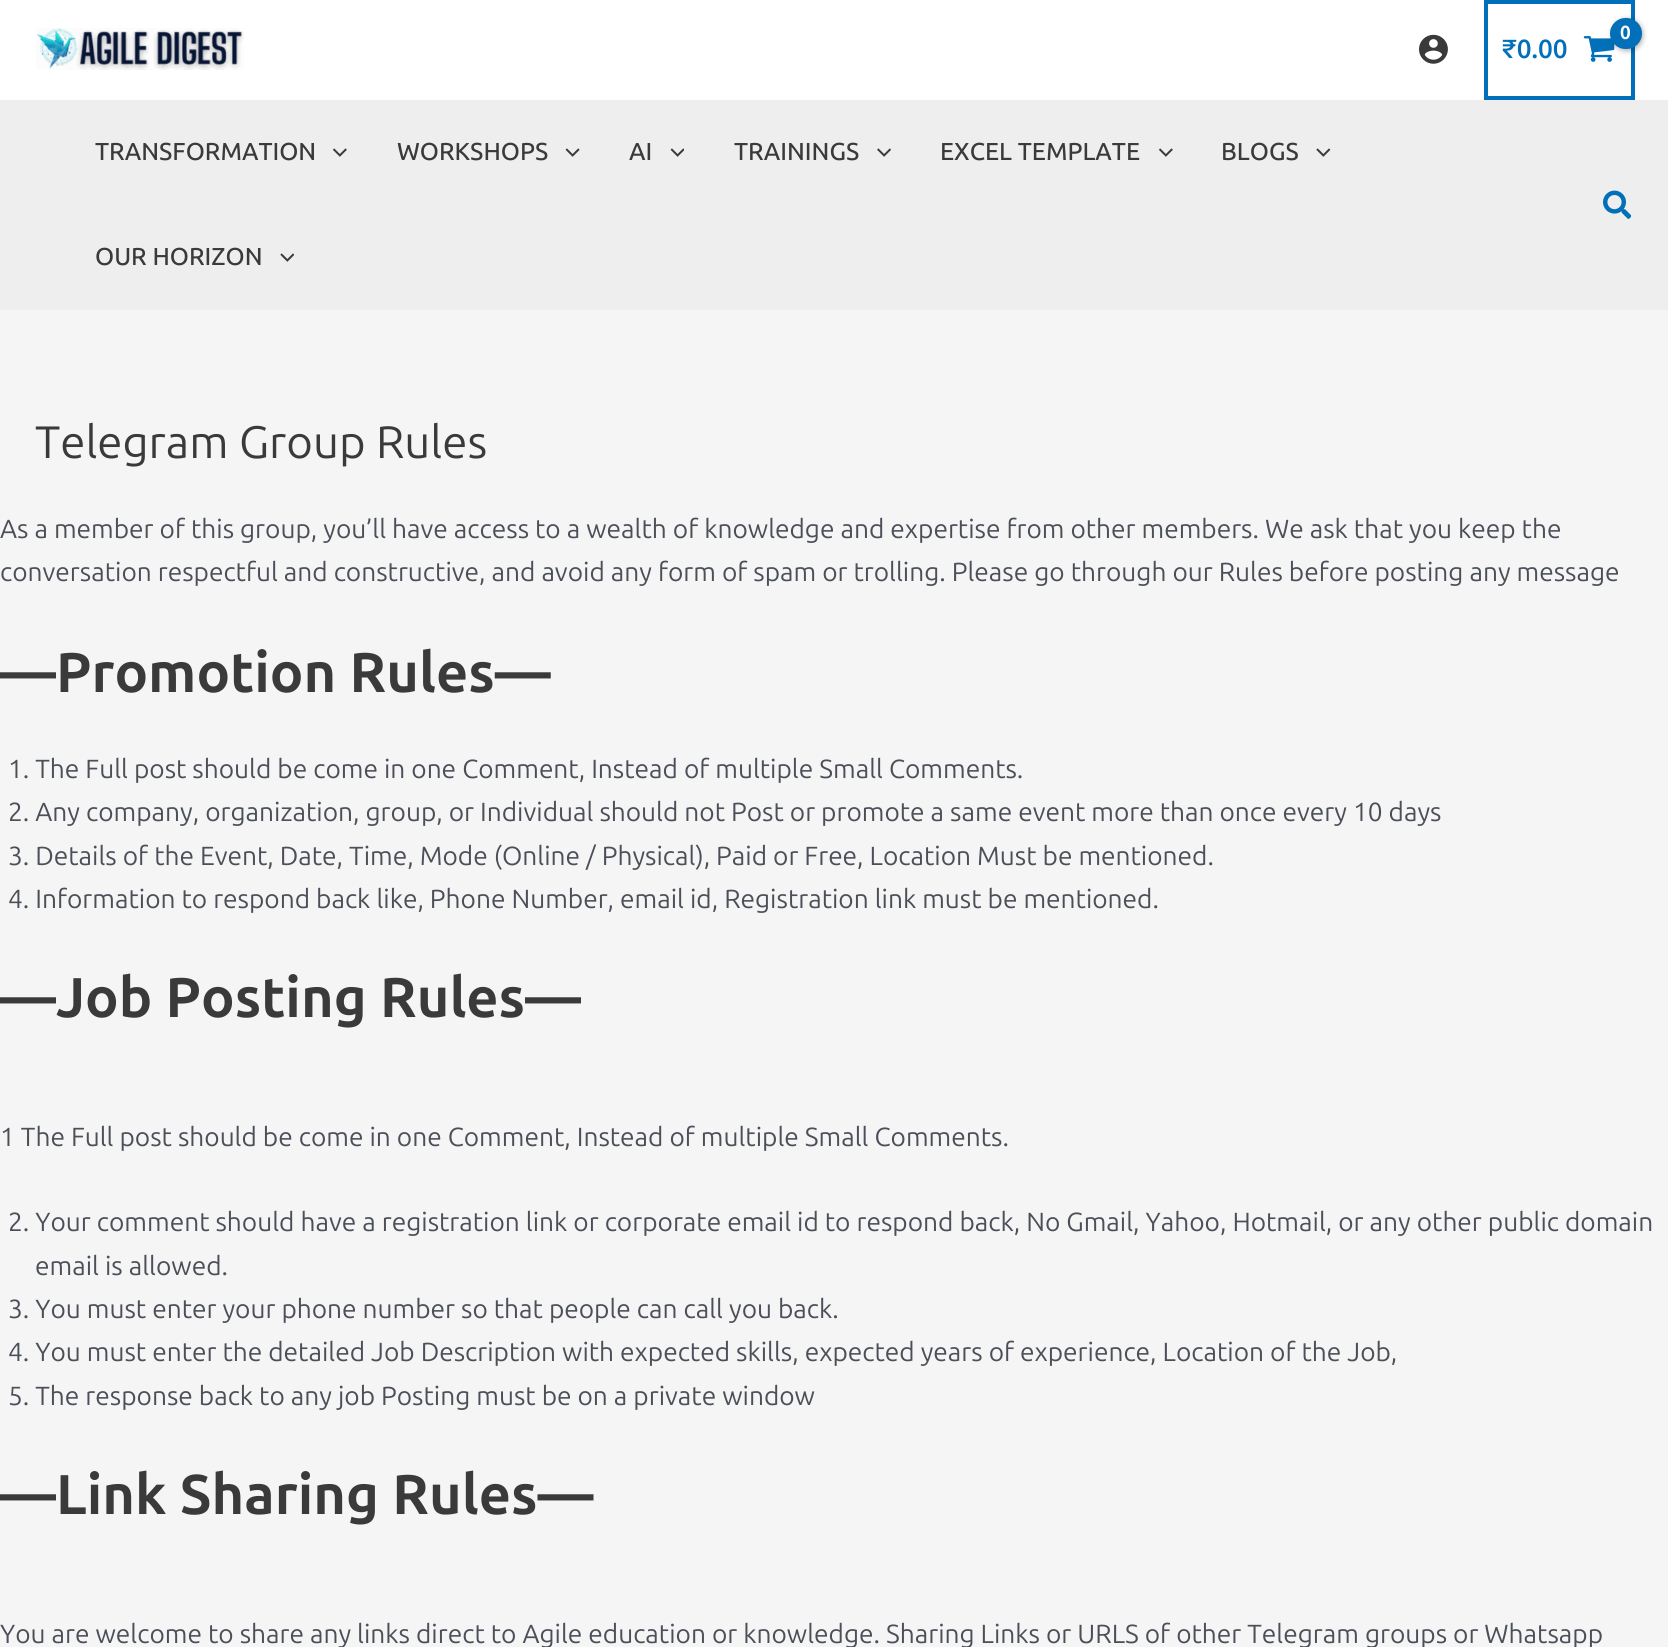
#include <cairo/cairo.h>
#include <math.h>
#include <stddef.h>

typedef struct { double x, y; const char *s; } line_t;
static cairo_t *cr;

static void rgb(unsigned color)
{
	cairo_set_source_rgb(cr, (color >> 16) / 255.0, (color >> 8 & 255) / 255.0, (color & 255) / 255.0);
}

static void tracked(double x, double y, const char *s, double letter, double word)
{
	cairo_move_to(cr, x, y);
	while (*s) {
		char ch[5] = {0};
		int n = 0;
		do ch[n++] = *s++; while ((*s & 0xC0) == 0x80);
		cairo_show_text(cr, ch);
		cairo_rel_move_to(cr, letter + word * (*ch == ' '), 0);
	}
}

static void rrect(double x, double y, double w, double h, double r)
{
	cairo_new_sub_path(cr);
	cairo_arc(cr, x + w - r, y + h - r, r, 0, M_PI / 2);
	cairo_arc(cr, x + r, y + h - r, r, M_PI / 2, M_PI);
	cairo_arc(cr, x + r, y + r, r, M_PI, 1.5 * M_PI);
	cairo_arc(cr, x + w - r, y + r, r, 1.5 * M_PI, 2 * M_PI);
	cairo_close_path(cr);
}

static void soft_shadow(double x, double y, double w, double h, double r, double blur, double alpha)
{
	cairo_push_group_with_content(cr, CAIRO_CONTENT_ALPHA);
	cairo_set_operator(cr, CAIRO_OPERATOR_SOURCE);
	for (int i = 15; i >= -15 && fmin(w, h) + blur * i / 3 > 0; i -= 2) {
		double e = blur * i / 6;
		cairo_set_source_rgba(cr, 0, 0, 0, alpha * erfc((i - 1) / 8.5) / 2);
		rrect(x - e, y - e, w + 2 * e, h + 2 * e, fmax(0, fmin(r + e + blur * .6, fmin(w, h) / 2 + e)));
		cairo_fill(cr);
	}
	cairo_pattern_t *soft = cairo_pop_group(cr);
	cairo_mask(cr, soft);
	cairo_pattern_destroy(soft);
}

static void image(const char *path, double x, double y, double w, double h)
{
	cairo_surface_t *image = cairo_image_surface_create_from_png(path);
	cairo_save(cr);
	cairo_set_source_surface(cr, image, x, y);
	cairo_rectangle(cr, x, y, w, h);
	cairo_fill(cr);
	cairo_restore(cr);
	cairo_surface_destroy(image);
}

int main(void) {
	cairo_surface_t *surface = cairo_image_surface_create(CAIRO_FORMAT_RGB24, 1668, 1647);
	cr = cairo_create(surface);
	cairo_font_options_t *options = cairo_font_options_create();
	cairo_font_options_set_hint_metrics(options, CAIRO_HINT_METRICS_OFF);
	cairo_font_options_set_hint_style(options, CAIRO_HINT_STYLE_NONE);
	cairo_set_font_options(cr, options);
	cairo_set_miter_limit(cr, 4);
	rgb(0xf5f5f5);
	cairo_paint(cr);
	rgb(0xffffff);
	cairo_rectangle(cr, 0, 0, 1668, 100);
	cairo_fill(cr);
	image("img/1.png", 36, 28, 208, 42);
	image("img/2.png", 1419, 34, 29, 30);
	cairo_rectangle(cr, 1486, 2, 147, 96);
	rgb(0x0170b9);
	cairo_set_line_width(cr, 4);
	cairo_stroke(cr);
	image("img/3.png", 1583, 36, 32, 26);
	rgb(0x000000);
	soft_shadow(1612, 19, 31, 32, 15.5, 2.5, 0.3);
	rgb(0x0170b9);
	rrect(1610, 18, 32, 31, 15.5);
	cairo_fill(cr);
	rgb(0xeeeeee);
	cairo_rectangle(cr, 0, 100, 1668, 210);
	cairo_fill(cr);
	image("img/4.png", 333, 148, 14, 9);
	image("img/5.png", 565, 148, 15, 9);
	image("img/6.png", 670, 148, 14, 9);
	image("img/7.png", 877, 148, 14, 9);
	image("img/4.png", 1159, 148, 14, 9);
	image("img/8.png", 1316, 148, 15, 9);
	image("img/9.png", 280, 253, 14, 9);
	image("img/10.png", 1603, 190, 28, 29);
	cairo_select_font_face(cr, "Ubuntu", CAIRO_FONT_SLANT_NORMAL, CAIRO_FONT_WEIGHT_BOLD);
	cairo_set_font_size(cr, 19);
	rgb(0xffffff);
	tracked(1620, 39, "0", -1, 0);
	cairo_select_font_face(cr, "Ubuntu SemiBold", CAIRO_FONT_SLANT_NORMAL, CAIRO_FONT_WEIGHT_NORMAL);
	cairo_set_font_size(cr, 26.25);
	rgb(0x0170b9);
	cairo_move_to(cr, 1502, 58);
	cairo_show_text(cr, "₹0.00");
	cairo_select_font_face(cr, "Ubuntu Medium", CAIRO_FONT_SLANT_NORMAL, CAIRO_FONT_WEIGHT_NORMAL);
	cairo_set_font_size(cr, 24.5);
	rgb(0x3a3a3a);
	{
		static const line_t items[] = {
			{95, 160, "TRANSFORMATION"},
			{397, 160, "WORKSHOPS"},
			{629, 160, "AI"},
			{734, 160, "TRAININGS"},
			{940, 160, "EXCEL TEMPLATE"},
			{1221, 160, "BLOGS"},
			{95, 265, "OUR HORIZON"},
		};
		for (size_t i = 0; i < sizeof items / sizeof *items; i++) {
			cairo_move_to(cr, items[i].x, items[i].y);
			cairo_show_text(cr, items[i].s);
		}
	}
	cairo_select_font_face(cr, "Ubuntu", CAIRO_FONT_SLANT_NORMAL, CAIRO_FONT_WEIGHT_NORMAL);
	cairo_set_font_size(cr, 45.5);
	cairo_move_to(cr, 35, 458);
	cairo_show_text(cr, "Telegram Group Rules");
	cairo_set_font_size(cr, 26.25);
	rgb(0x4b4f58);
	cairo_move_to(cr, 0, 538);
	cairo_show_text(cr, "As a member of this group, you’ll have access to a wealth of knowledge and expertise from other members. We ask that you keep the");
	cairo_move_to(cr, 0, 581);
	cairo_show_text(cr, "conversation respectful and constructive, and avoid any form of spam or trolling. Please go through our Rules before posting any message");
	cairo_select_font_face(cr, "Ubuntu", CAIRO_FONT_SLANT_NORMAL, CAIRO_FONT_WEIGHT_BOLD);
	cairo_set_font_size(cr, 56);
	rgb(0x3a3a3a);
	cairo_move_to(cr, 0, 692);
	cairo_show_text(cr, "—Promotion Rules—");
	cairo_select_font_face(cr, "Ubuntu", CAIRO_FONT_SLANT_NORMAL, CAIRO_FONT_WEIGHT_NORMAL);
	cairo_set_font_size(cr, 26.25);
	rgb(0x4b4f58);
	{
		static const line_t items[] = {
			{8, 778, "1. The Full post should be come in one Comment, Instead of multiple Small Comments."},
			{8, 821, "2. Any company, organization, group, or Individual should not Post or promote a same event more than once every 10 days"},
			{8, 865, "3. Details of the Event, Date, Time, Mode (Online / Physical), Paid or Free, Location Must be mentioned."},
			{8, 908, "4. Information to respond back like, Phone Number, email id, Registration link must be mentioned."},
		};
		for (size_t i = 0; i < sizeof items / sizeof *items; i++) {
			cairo_move_to(cr, items[i].x, items[i].y);
			cairo_show_text(cr, items[i].s);
		}
	}
	cairo_select_font_face(cr, "Ubuntu", CAIRO_FONT_SLANT_NORMAL, CAIRO_FONT_WEIGHT_BOLD);
	cairo_set_font_size(cr, 56);
	rgb(0x3a3a3a);
	cairo_move_to(cr, 0, 1017);
	cairo_show_text(cr, "—Job Posting Rules—");
	cairo_select_font_face(cr, "Ubuntu", CAIRO_FONT_SLANT_NORMAL, CAIRO_FONT_WEIGHT_NORMAL);
	cairo_set_font_size(cr, 26.25);
	rgb(0x4b4f58);
	{
		static const line_t items[] = {
			{0, 1146, "1 The Full post should be come in one Comment, Instead of multiple Small Comments."},
			{8, 1231, "2. Your comment should have a registration link or corporate email id to respond back, No Gmail, Yahoo, Hotmail, or any other public domain"},
			{35, 1275, "email is allowed."},
			{8, 1318, "3. You must enter your phone number so that people can call you back."},
			{8, 1361, "4. You must enter the detailed Job Description with expected skills, expected years of experience, Location of the Job,"},
			{8, 1405, "5. The response back to any job Posting must be on a private window"},
		};
		for (size_t i = 0; i < sizeof items / sizeof *items; i++) {
			cairo_move_to(cr, items[i].x, items[i].y);
			cairo_show_text(cr, items[i].s);
		}
	}
	cairo_select_font_face(cr, "Ubuntu", CAIRO_FONT_SLANT_NORMAL, CAIRO_FONT_WEIGHT_BOLD);
	cairo_set_font_size(cr, 56);
	rgb(0x3a3a3a);
	cairo_move_to(cr, 0, 1514);
	cairo_show_text(cr, "—Link Sharing Rules—");
	cairo_select_font_face(cr, "Ubuntu", CAIRO_FONT_SLANT_NORMAL, CAIRO_FONT_WEIGHT_NORMAL);
	cairo_set_font_size(cr, 26.25);
	rgb(0x4b4f58);
	cairo_move_to(cr, 0, 1643);
	cairo_show_text(cr, "You are welcome to share any links direct to Agile education or knowledge. Sharing Links or URLS of other Telegram groups or Whatsapp");
	cairo_surface_write_to_png(surface, "page.png");
	cairo_font_options_destroy(options);
	cairo_destroy(cr);
	cairo_surface_destroy(surface);
	return 0;
}
